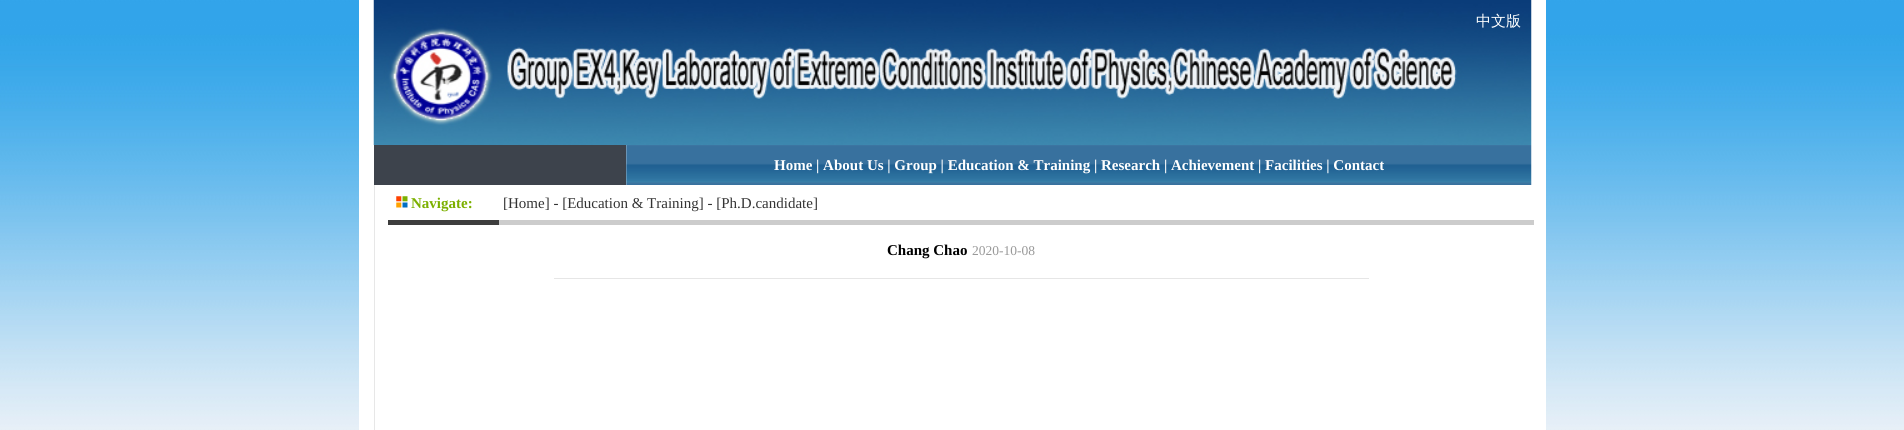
#include <cairo/cairo.h>
#include <math.h>
#include <stddef.h>

typedef struct { double x, y, w, h; unsigned color; } box_t;
static cairo_t *cr;

static void rgb(unsigned color)
{
	cairo_set_source_rgb(cr, (color >> 16) / 255.0, (color >> 8 & 255) / 255.0, (color & 255) / 255.0);
}

static void image(const char *path, double x, double y, double w, double h)
{
	cairo_surface_t *image = cairo_image_surface_create_from_png(path);
	cairo_save(cr);
	cairo_set_source_surface(cr, image, x, y);
	cairo_rectangle(cr, x, y, w, h);
	cairo_fill(cr);
	cairo_restore(cr);
	cairo_surface_destroy(image);
}

int main(void) {
	cairo_surface_t *surface = cairo_image_surface_create(CAIRO_FORMAT_RGB24, 1904, 430);
	cr = cairo_create(surface);
	cairo_font_options_t *options = cairo_font_options_create();
	cairo_font_options_set_hint_metrics(options, CAIRO_HINT_METRICS_OFF);
	cairo_font_options_set_hint_style(options, CAIRO_HINT_STYLE_NONE);
	cairo_set_font_options(cr, options);
	cairo_set_miter_limit(cr, 4);
	rgb(0xffffff);
	cairo_paint(cr);
	image("img/1.png", 0, 0, 1904, 430);
	rgb(0xffffff);
	cairo_rectangle(cr, 359, 0, 1187, 430);
	cairo_fill(cr);
	image("img/2.png", 373, 0, 1159, 145);
	rgb(0x3d434c);
	cairo_rectangle(cr, 374, 145, 252, 40);
	cairo_fill(cr);
	image("img/3.png", 626, 145, 906, 40);
	{
		static const box_t items[] = {
			{374, 185, 1, 245, 0xe7e7e7},
			{494, 220, 1040, 5, 0xcccccc},
			{388, 220, 111, 5, 0x3d3d3d},
		};
		for (size_t i = 0; i < sizeof items / sizeof *items; i++) {
			rgb(items[i].color);
			cairo_rectangle(cr, items[i].x, items[i].y, items[i].w, items[i].h);
			cairo_fill(cr);
		}
	}
	image("img/4.png", 396, 196, 12, 12);
	rgb(0xe6e6e6);
	cairo_rectangle(cr, 554, 278, 815, 1);
	cairo_fill(cr);
	cairo_select_font_face(cr, "WenQuanYi Zen Hei Medium", CAIRO_FONT_SLANT_NORMAL, CAIRO_FONT_WEIGHT_NORMAL);
	cairo_set_font_size(cr, 15);
	rgb(0xffffff);
	cairo_move_to(cr, 1476, 26);
	cairo_show_text(cr, "中文版");
	cairo_select_font_face(cr, "Liberation Serif", CAIRO_FONT_SLANT_NORMAL, CAIRO_FONT_WEIGHT_BOLD);
	cairo_move_to(cr, 774, 170);
	cairo_show_text(cr, "Home | About Us | Group | Education & Training | Research | Achievement | Facilities | Contact");
	rgb(0x7cb000);
	cairo_move_to(cr, 411, 208);
	cairo_show_text(cr, "Navigate:");
	cairo_select_font_face(cr, "Liberation Serif", CAIRO_FONT_SLANT_NORMAL, CAIRO_FONT_WEIGHT_NORMAL);
	rgb(0x333333);
	cairo_move_to(cr, 503, 208);
	cairo_show_text(cr, "[Home] - [Education & Training] - [Ph.D.candidate]");
	cairo_select_font_face(cr, "Liberation Serif", CAIRO_FONT_SLANT_NORMAL, CAIRO_FONT_WEIGHT_BOLD);
	rgb(0x000000);
	cairo_move_to(cr, 887, 255);
	cairo_show_text(cr, "Chang Chao");
	cairo_select_font_face(cr, "Liberation Serif", CAIRO_FONT_SLANT_NORMAL, CAIRO_FONT_WEIGHT_NORMAL);
	cairo_set_font_size(cr, 13.5);
	rgb(0x999999);
	cairo_move_to(cr, 972, 255);
	cairo_show_text(cr, "2020-10-08");
	cairo_surface_write_to_png(surface, "page.png");
	cairo_font_options_destroy(options);
	cairo_destroy(cr);
	cairo_surface_destroy(surface);
	return 0;
}
